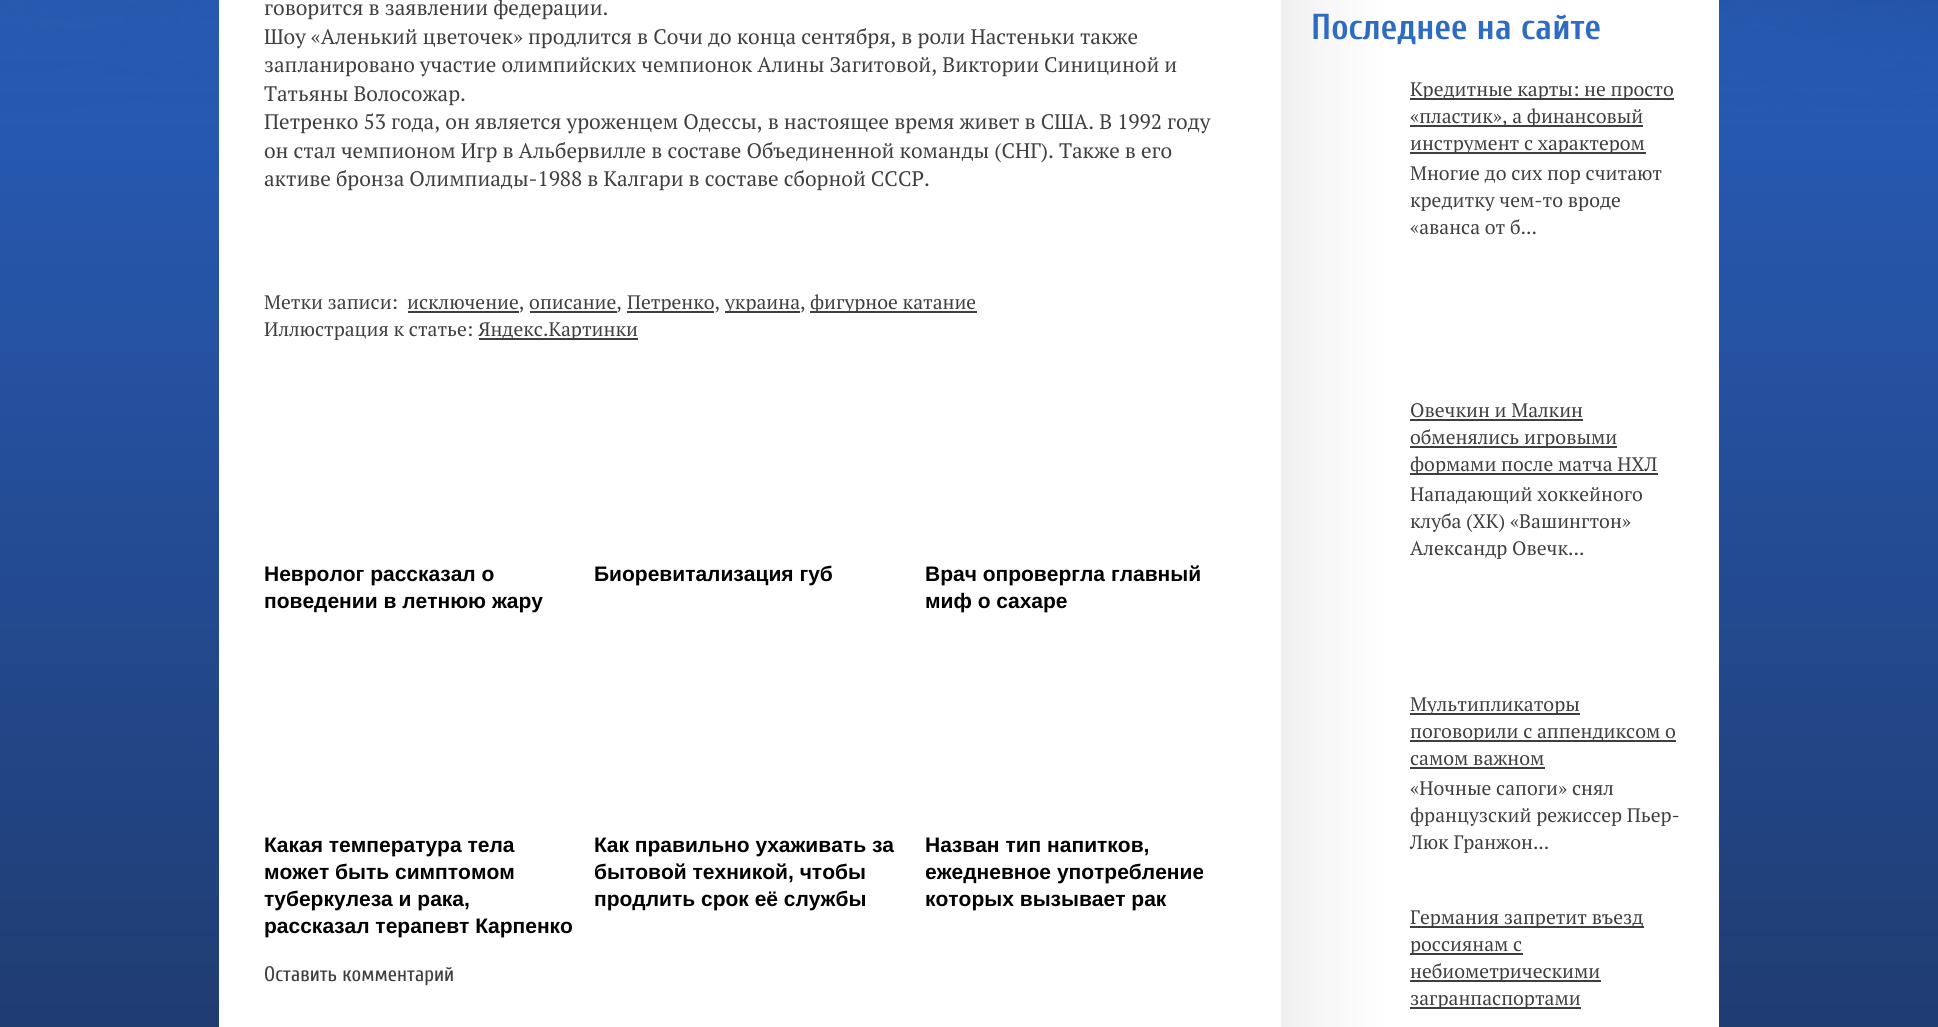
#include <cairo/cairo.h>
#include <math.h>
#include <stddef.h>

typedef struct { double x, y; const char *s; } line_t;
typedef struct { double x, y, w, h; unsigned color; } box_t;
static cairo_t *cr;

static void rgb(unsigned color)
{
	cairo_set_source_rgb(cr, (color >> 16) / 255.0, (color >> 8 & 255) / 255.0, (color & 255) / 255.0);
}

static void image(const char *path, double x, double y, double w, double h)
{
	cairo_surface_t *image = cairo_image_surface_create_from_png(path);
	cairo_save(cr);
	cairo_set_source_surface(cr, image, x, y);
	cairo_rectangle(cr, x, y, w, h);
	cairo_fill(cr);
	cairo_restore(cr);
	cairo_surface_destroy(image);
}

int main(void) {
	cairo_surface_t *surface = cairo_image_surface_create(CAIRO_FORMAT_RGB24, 1938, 1027);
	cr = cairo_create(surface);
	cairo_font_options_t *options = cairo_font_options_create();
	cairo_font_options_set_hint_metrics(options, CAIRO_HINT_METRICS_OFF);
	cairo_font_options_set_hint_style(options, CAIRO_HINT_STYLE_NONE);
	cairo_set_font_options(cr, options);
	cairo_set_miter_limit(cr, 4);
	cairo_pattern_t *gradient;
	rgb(0xffffff);
	cairo_paint(cr);
	gradient = cairo_pattern_create_linear(969, -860, 969, 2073);
	cairo_pattern_add_color_stop_rgba(gradient, 0, 0.18, 0.467, 0.961, 1);
	cairo_pattern_add_color_stop_rgba(gradient, 1, 0.094, 0.11, 0.161, 1);
	cairo_set_source(cr, gradient);
	cairo_pattern_destroy(gradient);
	cairo_rectangle(cr, 0, 0, 1938, 1027);
	cairo_fill(cr);
	image("img/1.png", 0, 0, 1938, 119);
	image("img/2.png", 219, 0, 1500, 1027);
	{
		static const box_t items[] = {
			{408, 311, 111, 2, 0x3f3f3f},
			{627, 311, 87, 2, 0x3f3f3f},
			{725, 311, 75, 2, 0x3f3f3f},
			{810, 311, 167, 2, 0x3f3f3f},
			{530, 311, 87, 2, 0x3f3f3f},
			{479, 338, 159, 2, 0x3f3f3f},
			{1410, 98, 264, 2, 0x3f3f3f},
			{1410, 125, 233, 2, 0x3f3f3f},
			{1410, 152, 236, 2, 0x3f3f3f},
			{1410, 419, 173, 2, 0x3f3f3f},
			{1410, 446, 207, 2, 0x3f3f3f},
			{1410, 473, 248, 2, 0x3f3f3f},
			{1410, 713, 170, 2, 0x3f3f3f},
			{1410, 740, 266, 2, 0x3f3f3f},
			{1410, 767, 135, 2, 0x3f3f3f},
			{1410, 926, 234, 2, 0x3f3f3f},
			{1410, 953, 113, 2, 0x3f3f3f},
			{1410, 980, 191, 2, 0x3f3f3f},
			{1410, 1007, 171, 2, 0x3f3f3f},
		};
		for (size_t i = 0; i < sizeof items / sizeof *items; i++) {
			rgb(items[i].color);
			cairo_rectangle(cr, items[i].x, items[i].y, items[i].w, items[i].h);
			cairo_fill(cr);
		}
	}
	cairo_select_font_face(cr, "PT Serif", CAIRO_FONT_SLANT_NORMAL, CAIRO_FONT_WEIGHT_NORMAL);
	cairo_set_font_size(cr, 21);
	{
		static const line_t items[] = {
			{264, 15, "говорится в заявлении федерации."},
			{264, 44, "Шоу «Аленький цветочек» продлится в Сочи до конца сентября, в роли Настеньки также"},
			{264, 72, "запланировано участие олимпийских чемпионок Алины Загитовой, Виктории Синициной и"},
			{264, 101, "Татьяны Волосожар."},
			{264, 129, "Петренко 53 года, он является уроженцем Одессы, в настоящее время живет в США. В 1992 году"},
			{264, 158, "он стал чемпионом Игр в Альбервилле в составе Объединенной команды (СНГ). Также в его"},
			{264, 186, "активе бронза Олимпиады-1988 в Калгари в составе сборной СССР."},
		};
		for (size_t i = 0; i < sizeof items / sizeof *items; i++) {
			cairo_move_to(cr, items[i].x, items[i].y);
			cairo_show_text(cr, items[i].s);
		}
	}
	cairo_set_font_size(cr, 19.5);
	{
		static const line_t items[] = {
			{264, 309, "Метки записи:"},
			{407, 309, "исключение, описание,"},
			{627, 309, "Петренко,"},
			{725, 309, "украина,"},
			{810, 309, "фигурное катание"},
			{264, 336, "Иллюстрация к статье:"},
			{478, 336, "Яндекс.Картинки"},
		};
		for (size_t i = 0; i < sizeof items / sizeof *items; i++) {
			cairo_move_to(cr, items[i].x, items[i].y);
			cairo_show_text(cr, items[i].s);
		}
	}
	cairo_select_font_face(cr, "Liberation Sans", CAIRO_FONT_SLANT_NORMAL, CAIRO_FONT_WEIGHT_BOLD);
	cairo_set_font_size(cr, 21);
	rgb(0x000000);
	{
		static const line_t items[] = {
			{264, 581, "Невролог рассказал о"},
			{264, 608, "поведении в летнюю жару"},
			{594, 581, "Биоревитализация губ"},
			{925, 581, "Врач опровергла главный"},
			{925, 608, "миф о сахаре"},
			{264, 852, "Какая температура тела"},
			{264, 879, "может быть симптомом"},
			{264, 906, "туберкулеза и рака,"},
			{264, 933, "рассказал терапевт Карпенко"},
			{594, 852, "Как правильно ухаживать за"},
			{594, 879, "бытовой техникой, чтобы"},
			{594, 906, "продлить срок её службы"},
			{925, 852, "Назван тип напитков,"},
		};
		for (size_t i = 0; i < sizeof items / sizeof *items; i++) {
			cairo_move_to(cr, items[i].x, items[i].y);
			cairo_show_text(cr, items[i].s);
		}
	}
	cairo_save(cr);
	cairo_rectangle(cr, 926, 831, 310, 81);
	cairo_clip(cr);
	cairo_move_to(cr, 925, 879);
	cairo_show_text(cr, "ежедневное употребление");
	cairo_restore(cr);
	cairo_move_to(cr, 925, 906);
	cairo_show_text(cr, "которых вызывает рак");
	cairo_select_font_face(cr, "Cuprum", CAIRO_FONT_SLANT_NORMAL, CAIRO_FONT_WEIGHT_NORMAL);
	rgb(0x3f3f3f);
	cairo_move_to(cr, 264, 981);
	cairo_show_text(cr, "Оставить комментарий");
	cairo_select_font_face(cr, "Cuprum", CAIRO_FONT_SLANT_NORMAL, CAIRO_FONT_WEIGHT_BOLD);
	cairo_set_font_size(cr, 36);
	rgb(0x2e6cc3);
	cairo_move_to(cr, 1311, 39);
	cairo_show_text(cr, "Последнее на сайте");
	cairo_select_font_face(cr, "PT Serif", CAIRO_FONT_SLANT_NORMAL, CAIRO_FONT_WEIGHT_NORMAL);
	cairo_set_font_size(cr, 19.5);
	rgb(0x3f3f3f);
	{
		static const line_t items[] = {
			{1410, 96, "Кредитные карты: не просто"},
			{1410, 123, "«пластик», а финансовый"},
			{1410, 150, "инструмент с характером"},
			{1410, 180, "Многие до сих пор считают"},
			{1410, 207, "кредитку чем-то вроде"},
			{1410, 234, "«аванса от б..."},
			{1410, 417, "Овечкин и Малкин"},
			{1410, 444, "обменялись игровыми"},
			{1410, 471, "формами после матча НХЛ"},
			{1410, 501, "Нападающий хоккейного"},
			{1410, 528, "клуба (ХК) «Вашингтон»"},
			{1410, 555, "Александр Овечк..."},
			{1410, 711, "Мультипликаторы"},
			{1410, 738, "поговорили с аппендиксом о"},
			{1410, 765, "самом важном"},
			{1410, 795, "«Ночные сапоги» снял"},
			{1410, 822, "французский режиссер Пьер-"},
			{1410, 849, "Люк Гранжон..."},
			{1410, 924, "Германия запретит въезд"},
			{1410, 951, "россиянам с"},
			{1410, 978, "небиометрическими"},
			{1410, 1005, "загранпаспортами"},
		};
		for (size_t i = 0; i < sizeof items / sizeof *items; i++) {
			cairo_move_to(cr, items[i].x, items[i].y);
			cairo_show_text(cr, items[i].s);
		}
	}
	cairo_surface_write_to_png(surface, "page.png");
	cairo_font_options_destroy(options);
	cairo_destroy(cr);
	cairo_surface_destroy(surface);
	return 0;
}
